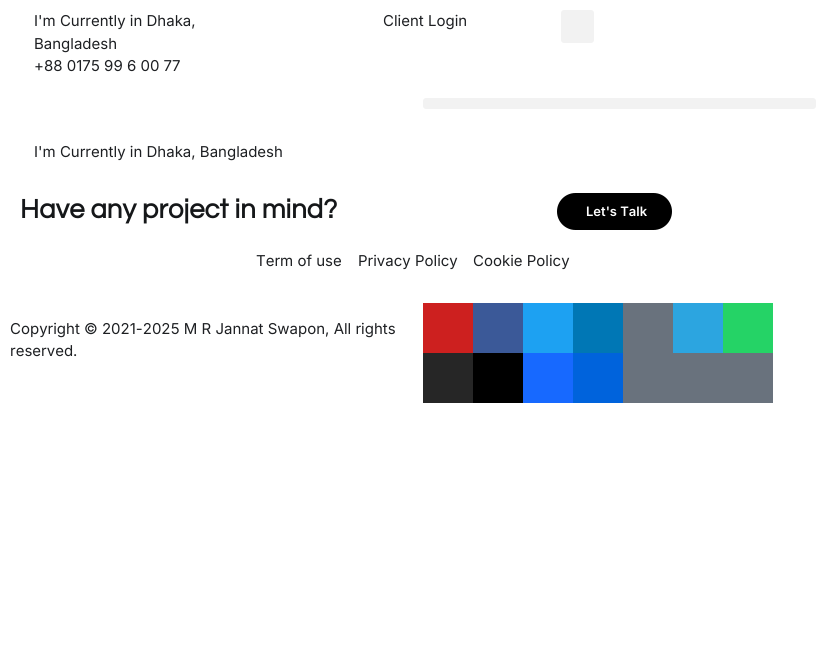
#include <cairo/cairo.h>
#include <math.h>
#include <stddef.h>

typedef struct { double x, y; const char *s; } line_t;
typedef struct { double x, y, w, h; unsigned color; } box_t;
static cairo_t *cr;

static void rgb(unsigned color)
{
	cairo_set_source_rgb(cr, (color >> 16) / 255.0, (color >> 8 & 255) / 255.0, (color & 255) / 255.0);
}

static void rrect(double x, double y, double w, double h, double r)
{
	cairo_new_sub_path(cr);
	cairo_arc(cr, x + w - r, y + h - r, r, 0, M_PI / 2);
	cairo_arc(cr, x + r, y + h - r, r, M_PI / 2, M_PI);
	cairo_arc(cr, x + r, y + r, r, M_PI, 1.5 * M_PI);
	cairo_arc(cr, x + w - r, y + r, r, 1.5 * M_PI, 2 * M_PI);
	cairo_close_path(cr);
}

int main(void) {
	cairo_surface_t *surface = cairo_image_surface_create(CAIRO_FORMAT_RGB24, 826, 670);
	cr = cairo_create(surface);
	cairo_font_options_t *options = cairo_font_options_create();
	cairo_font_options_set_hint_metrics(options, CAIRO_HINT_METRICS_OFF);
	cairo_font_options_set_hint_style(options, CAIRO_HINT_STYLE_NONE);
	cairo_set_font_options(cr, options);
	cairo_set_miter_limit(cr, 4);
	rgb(0xffffff);
	cairo_paint(cr);
	rgb(0xf2f2f2);
	rrect(561, 10, 33, 33, 3);
	cairo_fill(cr);
	rrect(423, 98, 393, 11, 3);
	cairo_fill(cr);
	rgb(0x000000);
	rrect(557, 193, 115, 37, 18.5);
	cairo_fill(cr);
	{
		static const box_t items[] = {
			{423, 303, 50, 50, 0xcd201f},
			{473, 303, 50, 50, 0x3b5998},
			{523, 303, 50, 50, 0x1da1f2},
			{573, 303, 50, 50, 0x0077b5},
			{623, 303, 50, 100, 0x69727d},
			{673, 303, 50, 50, 0x2ca5e0},
			{723, 303, 50, 50, 0x25d366},
			{423, 353, 50, 50, 0x262626},
			{473, 353, 50, 50, 0x000000},
			{523, 353, 50, 50, 0x1769ff},
			{573, 353, 50, 50, 0x0063dc},
			{673, 353, 100, 50, 0x69727d},
		};
		for (size_t i = 0; i < sizeof items / sizeof *items; i++) {
			rgb(items[i].color);
			cairo_rectangle(cr, items[i].x, items[i].y, items[i].w, items[i].h);
			cairo_fill(cr);
		}
	}
	cairo_select_font_face(cr, "Inter", CAIRO_FONT_SLANT_NORMAL, CAIRO_FONT_WEIGHT_NORMAL);
	cairo_set_font_size(cr, 15);
	rgb(0x1d1f22);
	{
		static const line_t items[] = {
			{34, 26, "I'm Currently in Dhaka,"},
			{34, 49, "Bangladesh"},
			{34, 71, "+88 0175 99 6 00 77"},
			{383, 26, "Client Login"},
			{34, 157, "I'm Currently in Dhaka, Bangladesh"},
		};
		for (size_t i = 0; i < sizeof items / sizeof *items; i++) {
			cairo_move_to(cr, items[i].x, items[i].y);
			cairo_show_text(cr, items[i].s);
		}
	}
	cairo_select_font_face(cr, "Questrial", CAIRO_FONT_SLANT_NORMAL, CAIRO_FONT_WEIGHT_BOLD);
	cairo_set_font_size(cr, 27.6);
	rgb(0x151719);
	cairo_move_to(cr, 20, 218);
	cairo_show_text(cr, "Have any project in mind?");
	cairo_select_font_face(cr, "Inter SemiBold", CAIRO_FONT_SLANT_NORMAL, CAIRO_FONT_WEIGHT_NORMAL);
	cairo_set_font_size(cr, 13);
	rgb(0xffffff);
	cairo_move_to(cr, 586, 216);
	cairo_show_text(cr, "Let's Talk");
	cairo_select_font_face(cr, "Inter", CAIRO_FONT_SLANT_NORMAL, CAIRO_FONT_WEIGHT_NORMAL);
	cairo_set_font_size(cr, 15);
	rgb(0x1d1f22);
	{
		static const line_t items[] = {
			{256, 266, "Term of use"},
			{358, 266, "Privacy Policy"},
			{473, 266, "Cookie Policy"},
			{10, 334, "Copyright © 2021-2025 M R Jannat Swapon, All rights"},
			{10, 356, "reserved."},
		};
		for (size_t i = 0; i < sizeof items / sizeof *items; i++) {
			cairo_move_to(cr, items[i].x, items[i].y);
			cairo_show_text(cr, items[i].s);
		}
	}
	cairo_surface_write_to_png(surface, "page.png");
	cairo_font_options_destroy(options);
	cairo_destroy(cr);
	cairo_surface_destroy(surface);
	return 0;
}
